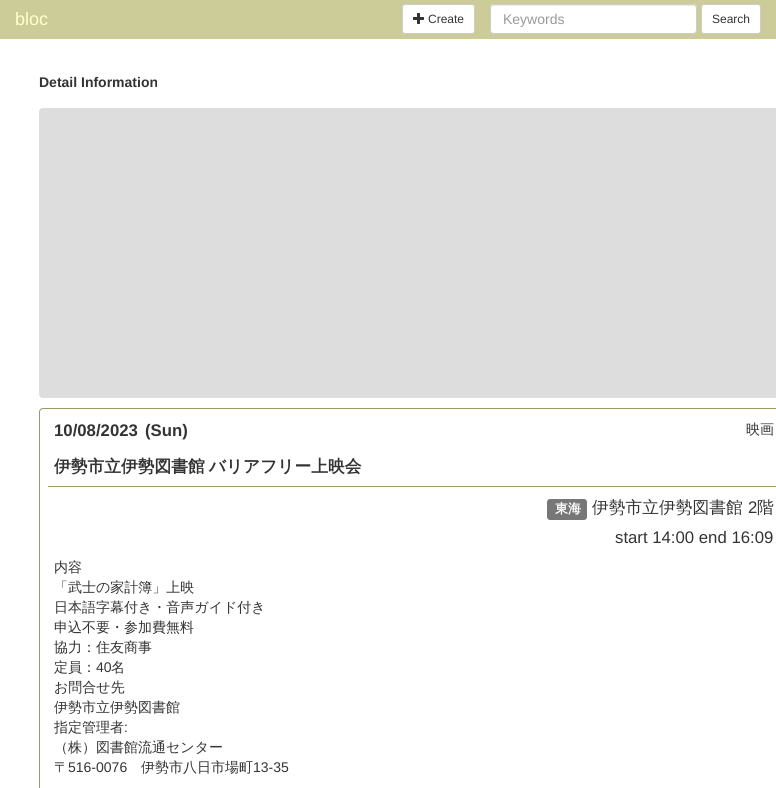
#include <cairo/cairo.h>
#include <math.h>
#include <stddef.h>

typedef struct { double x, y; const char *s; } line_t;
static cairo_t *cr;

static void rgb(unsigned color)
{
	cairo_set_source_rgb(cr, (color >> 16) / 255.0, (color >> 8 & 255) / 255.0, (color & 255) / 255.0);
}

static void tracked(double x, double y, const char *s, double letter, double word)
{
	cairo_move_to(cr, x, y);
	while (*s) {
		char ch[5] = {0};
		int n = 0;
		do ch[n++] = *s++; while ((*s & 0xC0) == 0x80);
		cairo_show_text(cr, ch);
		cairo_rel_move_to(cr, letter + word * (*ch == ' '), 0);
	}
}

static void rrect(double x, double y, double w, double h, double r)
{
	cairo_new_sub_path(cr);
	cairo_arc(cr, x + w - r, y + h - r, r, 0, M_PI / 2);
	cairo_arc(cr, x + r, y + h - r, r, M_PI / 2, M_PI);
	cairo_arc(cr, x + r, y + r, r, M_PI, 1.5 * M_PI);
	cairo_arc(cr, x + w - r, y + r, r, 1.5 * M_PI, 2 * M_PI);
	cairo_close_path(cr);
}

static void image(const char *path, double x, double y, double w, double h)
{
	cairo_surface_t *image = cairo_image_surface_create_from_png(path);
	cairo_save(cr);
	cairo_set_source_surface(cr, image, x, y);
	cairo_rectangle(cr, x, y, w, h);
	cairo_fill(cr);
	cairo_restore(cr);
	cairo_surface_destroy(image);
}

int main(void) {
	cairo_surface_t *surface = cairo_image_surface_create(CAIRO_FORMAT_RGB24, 776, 788);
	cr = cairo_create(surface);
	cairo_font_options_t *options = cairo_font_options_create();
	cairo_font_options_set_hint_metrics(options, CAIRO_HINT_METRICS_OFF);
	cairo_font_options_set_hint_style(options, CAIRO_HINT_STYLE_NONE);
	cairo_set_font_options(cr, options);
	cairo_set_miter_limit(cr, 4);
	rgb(0xffffff);
	cairo_paint(cr);
	rgb(0xcccc99);
	cairo_rectangle(cr, 0, 0, 776, 39);
	cairo_fill(cr);
	rgb(0xffffff);
	rrect(402.5, 4.5, 72, 29, 2.5);
	cairo_fill_preserve(cr);
	rgb(0xcccccc);
	cairo_set_line_width(cr, 1);
	cairo_stroke(cr);
	image("img/1.png", 413, 13, 11, 11);
	rgb(0xffffff);
	rrect(490, 4, 207, 30, 4);
	cairo_fill(cr);
	rgb(0xececec);
	cairo_new_path(cr);
	cairo_move_to(cr, 494, 6);
	cairo_line_to(cr, 693, 6);
	cairo_curve_to(cr, 695, 6, 696, 7, 696, 9);
	cairo_curve_to(cr, 696, 7, 695, 5, 693, 5);
	cairo_line_to(cr, 494, 5);
	cairo_curve_to(cr, 492, 5, 491, 7, 491, 9);
	cairo_curve_to(cr, 491, 7, 492, 6, 494, 6);
	cairo_close_path(cr);
	cairo_fill(cr);
	rrect(490.5, 4.5, 206, 29, 3.5);
	rgb(0xcccccc);
	cairo_stroke(cr);
	rgb(0xffffff);
	rrect(701.5, 4.5, 59, 29, 2.5);
	cairo_fill_preserve(cr);
	rgb(0xcccccc);
	cairo_stroke(cr);
	rgb(0xdddddd);
	rrect(39, 108, 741, 290, 4);
	cairo_fill(cr);
	rrect(39.5, 408.5, 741, 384, 3.5);
	rgb(0x999966);
	cairo_stroke(cr);
	cairo_rectangle(cr, 48, 486, 728, 1);
	cairo_fill(cr);
	rgb(0x777777);
	rrect(547, 499, 40, 21, 3);
	cairo_fill(cr);
	cairo_select_font_face(cr, "Liberation Sans", CAIRO_FONT_SLANT_NORMAL, CAIRO_FONT_WEIGHT_NORMAL);
	cairo_set_font_size(cr, 18);
	rgb(0xffffcc);
	cairo_move_to(cr, 15, 25);
	cairo_show_text(cr, "bloc");
	cairo_set_font_size(cr, 12);
	rgb(0x333333);
	cairo_move_to(cr, 428, 23);
	cairo_show_text(cr, "Create");
	cairo_set_font_size(cr, 14);
	rgb(0x999999);
	cairo_move_to(cr, 503, 24);
	cairo_show_text(cr, "Keywords");
	cairo_set_font_size(cr, 12);
	rgb(0x333333);
	cairo_move_to(cr, 712, 23);
	cairo_show_text(cr, "Search");
	cairo_select_font_face(cr, "Liberation Sans", CAIRO_FONT_SLANT_NORMAL, CAIRO_FONT_WEIGHT_BOLD);
	cairo_set_font_size(cr, 14);
	cairo_move_to(cr, 39, 87);
	cairo_show_text(cr, "Detail Information");
	cairo_set_font_size(cr, 16.75);
	cairo_move_to(cr, 54, 436);
	cairo_show_text(cr, "10/08/2023");
	cairo_move_to(cr, 145, 436);
	cairo_show_text(cr, "(Sun)");
	cairo_select_font_face(cr, "WenQuanYi Zen Hei Medium", CAIRO_FONT_SLANT_NORMAL, CAIRO_FONT_WEIGHT_NORMAL);
	cairo_set_font_size(cr, 14);
	cairo_move_to(cr, 746, 434);
	cairo_show_text(cr, "映画");
	cairo_select_font_face(cr, "WenQuanYi Zen Hei", CAIRO_FONT_SLANT_NORMAL, CAIRO_FONT_WEIGHT_BOLD);
	cairo_set_font_size(cr, 16.75);
	tracked(54, 472, "伊勢市立伊勢図書館 バリアフリー上映会", 0, -1);
	cairo_set_font_size(cr, 13);
	rgb(0xffffff);
	cairo_move_to(cr, 555, 513);
	cairo_show_text(cr, "東海");
	cairo_select_font_face(cr, "WenQuanYi Zen Hei Medium", CAIRO_FONT_SLANT_NORMAL, CAIRO_FONT_WEIGHT_NORMAL);
	cairo_set_font_size(cr, 16.75);
	rgb(0x333333);
	cairo_move_to(cr, 592, 513);
	cairo_show_text(cr, "伊勢市立伊勢図書館");
	cairo_select_font_face(cr, "Liberation Sans", CAIRO_FONT_SLANT_NORMAL, CAIRO_FONT_WEIGHT_NORMAL);
	cairo_move_to(cr, 748, 513);
	cairo_show_text(cr, "2");
	cairo_select_font_face(cr, "WenQuanYi Zen Hei Medium", CAIRO_FONT_SLANT_NORMAL, CAIRO_FONT_WEIGHT_NORMAL);
	cairo_move_to(cr, 757, 513);
	cairo_show_text(cr, "階");
	cairo_select_font_face(cr, "Liberation Sans", CAIRO_FONT_SLANT_NORMAL, CAIRO_FONT_WEIGHT_NORMAL);
	cairo_move_to(cr, 615, 543);
	cairo_show_text(cr, "start 14:00 end 16:09");
	cairo_select_font_face(cr, "WenQuanYi Zen Hei Medium", CAIRO_FONT_SLANT_NORMAL, CAIRO_FONT_WEIGHT_NORMAL);
	cairo_set_font_size(cr, 14);
	{
		static const line_t items[] = {
			{54, 572, "内容"},
			{54, 592, "「武士の家計簿」上映"},
			{54, 612, "日本語字幕付き・音声ガイド付き"},
			{54, 632, "申込不要・参加費無料"},
			{54, 652, "協力：住友商事"},
			{54, 672, "定員："},
		};
		for (size_t i = 0; i < sizeof items / sizeof *items; i++) {
			cairo_move_to(cr, items[i].x, items[i].y);
			cairo_show_text(cr, items[i].s);
		}
	}
	cairo_select_font_face(cr, "Liberation Sans", CAIRO_FONT_SLANT_NORMAL, CAIRO_FONT_WEIGHT_NORMAL);
	cairo_move_to(cr, 96, 672);
	cairo_show_text(cr, "40");
	cairo_select_font_face(cr, "WenQuanYi Zen Hei Medium", CAIRO_FONT_SLANT_NORMAL, CAIRO_FONT_WEIGHT_NORMAL);
	{
		static const line_t items[] = {
			{111, 672, "名"},
			{54, 692, "お問合せ先"},
			{54, 712, "伊勢市立伊勢図書館"},
			{54, 732, "指定管理者"},
		};
		for (size_t i = 0; i < sizeof items / sizeof *items; i++) {
			cairo_move_to(cr, items[i].x, items[i].y);
			cairo_show_text(cr, items[i].s);
		}
	}
	cairo_select_font_face(cr, "Liberation Sans", CAIRO_FONT_SLANT_NORMAL, CAIRO_FONT_WEIGHT_NORMAL);
	cairo_move_to(cr, 124, 732);
	cairo_show_text(cr, ":");
	cairo_select_font_face(cr, "WenQuanYi Zen Hei Medium", CAIRO_FONT_SLANT_NORMAL, CAIRO_FONT_WEIGHT_NORMAL);
	cairo_move_to(cr, 54, 752);
	cairo_show_text(cr, "（株）図書館流通センター");
	cairo_move_to(cr, 54, 772);
	cairo_show_text(cr, "〒");
	cairo_select_font_face(cr, "Liberation Sans", CAIRO_FONT_SLANT_NORMAL, CAIRO_FONT_WEIGHT_NORMAL);
	cairo_move_to(cr, 68, 772);
	cairo_show_text(cr, "516-0076");
	cairo_select_font_face(cr, "WenQuanYi Zen Hei Medium", CAIRO_FONT_SLANT_NORMAL, CAIRO_FONT_WEIGHT_NORMAL);
	cairo_move_to(cr, 141, 772);
	cairo_show_text(cr, "伊勢市八日市場町");
	cairo_select_font_face(cr, "Liberation Sans", CAIRO_FONT_SLANT_NORMAL, CAIRO_FONT_WEIGHT_NORMAL);
	cairo_move_to(cr, 253, 772);
	cairo_show_text(cr, "13-35");
	cairo_surface_write_to_png(surface, "page.png");
	cairo_font_options_destroy(options);
	cairo_destroy(cr);
	cairo_surface_destroy(surface);
	return 0;
}
